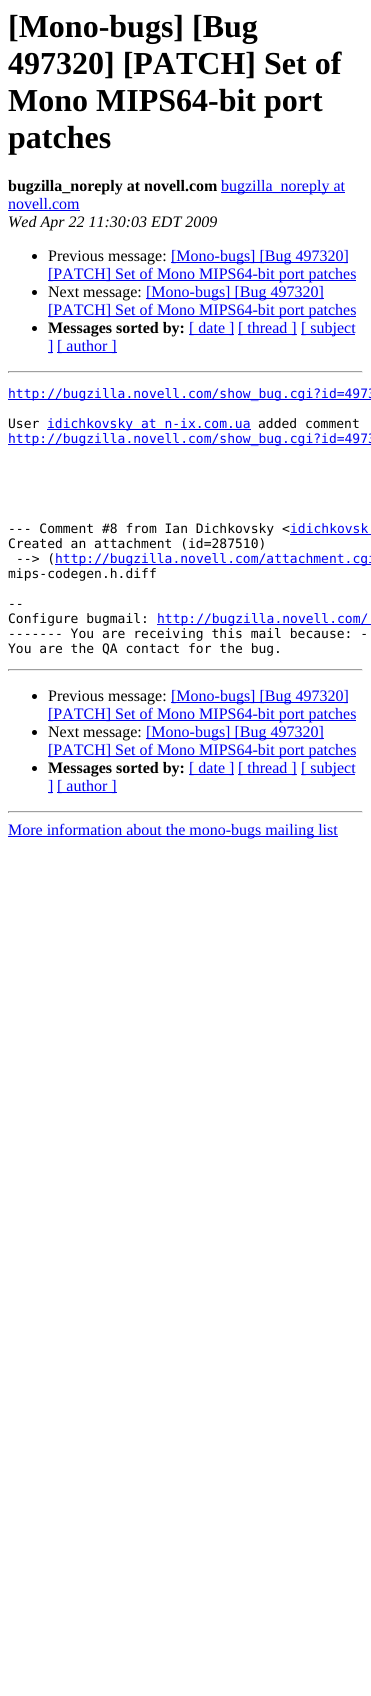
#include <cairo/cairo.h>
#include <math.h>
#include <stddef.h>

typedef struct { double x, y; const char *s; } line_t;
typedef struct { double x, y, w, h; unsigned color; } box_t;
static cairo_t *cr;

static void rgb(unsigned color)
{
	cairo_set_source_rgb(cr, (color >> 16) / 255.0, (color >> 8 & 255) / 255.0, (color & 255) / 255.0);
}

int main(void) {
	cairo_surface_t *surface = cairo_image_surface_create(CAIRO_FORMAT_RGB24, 371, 1696);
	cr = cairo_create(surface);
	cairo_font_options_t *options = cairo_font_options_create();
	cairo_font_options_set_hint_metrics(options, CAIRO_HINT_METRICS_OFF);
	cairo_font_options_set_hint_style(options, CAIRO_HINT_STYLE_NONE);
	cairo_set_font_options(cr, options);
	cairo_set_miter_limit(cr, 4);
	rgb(0xffffff);
	cairo_paint(cr);
	rgb(0x0000ee);
	cairo_rectangle(cr, 221, 192, 124, 1);
	cairo_fill(cr);
	cairo_rectangle(cr, 8, 210, 72, 1);
	cairo_fill(cr);
	rgb(0x000000);
	cairo_arc(cr, 34.5, 256.5, 2.5, 0, 2 * M_PI);
	cairo_fill(cr);
	rgb(0x0000ee);
	cairo_rectangle(cr, 171, 262, 177, 1);
	cairo_fill(cr);
	cairo_rectangle(cr, 48, 280, 308, 1);
	cairo_fill(cr);
	rgb(0x000000);
	cairo_arc(cr, 34.5, 292.5, 2.5, 0, 2 * M_PI);
	cairo_fill(cr);
	rgb(0x0000ee);
	cairo_rectangle(cr, 146, 298, 178, 1);
	cairo_fill(cr);
	cairo_rectangle(cr, 48, 316, 308, 1);
	cairo_fill(cr);
	rgb(0x000000);
	cairo_arc(cr, 34.5, 328.5, 2.5, 0, 2 * M_PI);
	cairo_fill(cr);
	{
		static const box_t items[] = {
			{189, 334, 45, 1, 0x0000ee},
			{238, 334, 59, 1, 0x0000ee},
			{301, 334, 54, 1, 0x0000ee},
			{48, 352, 5, 1, 0x0000ee},
			{57, 352, 60, 1, 0x0000ee},
			{8, 371, 355, 1, 0x9f9f9f},
			{362, 371, 1, 2, 0xeeeeee},
			{8, 372, 355, 1, 0xeeeeee},
			{8, 371, 1, 2, 0x9f9f9f},
			{8, 399, 363, 1, 0x0000ee},
			{47, 429, 204, 1, 0x0000ee},
			{8, 444, 363, 1, 0x0000ee},
			{290, 534, 81, 1, 0x0000ee},
			{55, 564, 316, 1, 0x0000ee},
			{157, 624, 214, 1, 0x0000ee},
			{8, 669, 355, 1, 0x9f9f9f},
			{362, 669, 1, 2, 0xeeeeee},
			{8, 670, 355, 1, 0xeeeeee},
			{8, 669, 1, 2, 0x9f9f9f},
		};
		for (size_t i = 0; i < sizeof items / sizeof *items; i++) {
			rgb(items[i].color);
			cairo_rectangle(cr, items[i].x, items[i].y, items[i].w, items[i].h);
			cairo_fill(cr);
		}
	}
	rgb(0x000000);
	cairo_arc(cr, 34.5, 696.5, 2.5, 0, 2 * M_PI);
	cairo_fill(cr);
	rgb(0x0000ee);
	cairo_rectangle(cr, 171, 702, 177, 1);
	cairo_fill(cr);
	cairo_rectangle(cr, 48, 720, 308, 1);
	cairo_fill(cr);
	rgb(0x000000);
	cairo_arc(cr, 34.5, 732.5, 2.5, 0, 2 * M_PI);
	cairo_fill(cr);
	rgb(0x0000ee);
	cairo_rectangle(cr, 146, 738, 178, 1);
	cairo_fill(cr);
	cairo_rectangle(cr, 48, 756, 308, 1);
	cairo_fill(cr);
	rgb(0x000000);
	cairo_arc(cr, 34.5, 768.5, 2.5, 0, 2 * M_PI);
	cairo_fill(cr);
	{
		static const box_t items[] = {
			{189, 774, 45, 1, 0x0000ee},
			{238, 774, 59, 1, 0x0000ee},
			{301, 774, 54, 1, 0x0000ee},
			{48, 792, 5, 1, 0x0000ee},
			{57, 792, 60, 1, 0x0000ee},
			{8, 811, 355, 1, 0x9f9f9f},
			{362, 811, 1, 2, 0xeeeeee},
			{8, 812, 355, 1, 0xeeeeee},
			{8, 811, 1, 2, 0x9f9f9f},
			{8, 836, 330, 1, 0x0000ee},
		};
		for (size_t i = 0; i < sizeof items / sizeof *items; i++) {
			rgb(items[i].color);
			cairo_rectangle(cr, items[i].x, items[i].y, items[i].w, items[i].h);
			cairo_fill(cr);
		}
	}
	cairo_select_font_face(cr, "Liberation Serif", CAIRO_FONT_SLANT_NORMAL, CAIRO_FONT_WEIGHT_BOLD);
	cairo_set_font_size(cr, 32);
	rgb(0x000000);
	{
		static const line_t items[] = {
			{8, 37, "[Mono-bugs] [Bug"},
			{8, 74, "497320] [PATCH] Set of"},
			{8, 111, "Mono MIPS64-bit port"},
			{8, 148, "patches"},
		};
		for (size_t i = 0; i < sizeof items / sizeof *items; i++) {
			cairo_move_to(cr, items[i].x, items[i].y);
			cairo_show_text(cr, items[i].s);
		}
	}
	cairo_set_font_size(cr, 16);
	cairo_move_to(cr, 8, 191);
	cairo_show_text(cr, "bugzilla_noreply at novell.com");
	cairo_select_font_face(cr, "Liberation Serif", CAIRO_FONT_SLANT_NORMAL, CAIRO_FONT_WEIGHT_NORMAL);
	rgb(0x0000ee);
	cairo_move_to(cr, 221, 191);
	cairo_show_text(cr, "bugzilla_noreply at");
	cairo_move_to(cr, 8, 209);
	cairo_show_text(cr, "novell.com");
	cairo_select_font_face(cr, "Liberation Serif", CAIRO_FONT_SLANT_ITALIC, CAIRO_FONT_WEIGHT_NORMAL);
	rgb(0x000000);
	cairo_move_to(cr, 8, 227);
	cairo_show_text(cr, "Wed Apr 22 11:30:03 EDT 2009");
	cairo_select_font_face(cr, "Liberation Serif", CAIRO_FONT_SLANT_NORMAL, CAIRO_FONT_WEIGHT_NORMAL);
	cairo_move_to(cr, 48, 261);
	cairo_show_text(cr, "Previous message:");
	rgb(0x0000ee);
	cairo_move_to(cr, 171, 261);
	cairo_show_text(cr, "[Mono-bugs] [Bug 497320]");
	cairo_move_to(cr, 48, 279);
	cairo_show_text(cr, "[PATCH] Set of Mono MIPS64-bit port patches");
	rgb(0x000000);
	cairo_move_to(cr, 48, 297);
	cairo_show_text(cr, "Next message:");
	rgb(0x0000ee);
	cairo_move_to(cr, 146, 297);
	cairo_show_text(cr, "[Mono-bugs] [Bug 497320]");
	cairo_move_to(cr, 48, 315);
	cairo_show_text(cr, "[PATCH] Set of Mono MIPS64-bit port patches");
	cairo_select_font_face(cr, "Liberation Serif", CAIRO_FONT_SLANT_NORMAL, CAIRO_FONT_WEIGHT_BOLD);
	rgb(0x000000);
	cairo_move_to(cr, 48, 333);
	cairo_show_text(cr, "Messages sorted by:");
	cairo_select_font_face(cr, "Liberation Serif", CAIRO_FONT_SLANT_NORMAL, CAIRO_FONT_WEIGHT_NORMAL);
	rgb(0x0000ee);
	{
		static const line_t items[] = {
			{189, 333, "[ date ]"},
			{238, 333, "[ thread ]"},
			{301, 333, "[ subject"},
			{48, 351, "]"},
			{57, 351, "[ author ]"},
		};
		for (size_t i = 0; i < sizeof items / sizeof *items; i++) {
			cairo_move_to(cr, items[i].x, items[i].y);
			cairo_show_text(cr, items[i].s);
		}
	}
	cairo_select_font_face(cr, "DejaVu Sans Mono", CAIRO_FONT_SLANT_NORMAL, CAIRO_FONT_WEIGHT_NORMAL);
	cairo_set_font_size(cr, 13);
	cairo_move_to(cr, 8, 398);
	cairo_show_text(cr, "http://bugzilla.novell.com/show_bug.cgi?id=4973");
	rgb(0x000000);
	cairo_move_to(cr, 8, 428);
	cairo_show_text(cr, "User");
	rgb(0x0000ee);
	cairo_move_to(cr, 47, 428);
	cairo_show_text(cr, "idichkovsky at n-ix.com.ua");
	rgb(0x000000);
	cairo_move_to(cr, 258, 428);
	cairo_show_text(cr, "added comment");
	rgb(0x0000ee);
	cairo_move_to(cr, 8, 443);
	cairo_show_text(cr, "http://bugzilla.novell.com/show_bug.cgi?id=4973");
	rgb(0x000000);
	cairo_move_to(cr, 8, 533);
	cairo_show_text(cr, "--- Comment #8 from Ian Dichkovsky <");
	rgb(0x0000ee);
	cairo_move_to(cr, 290, 533);
	cairo_show_text(cr, "idichkovsk");
	rgb(0x000000);
	cairo_move_to(cr, 8, 548);
	cairo_show_text(cr, "Created an attachment (id=287510)");
	cairo_move_to(cr, 16, 563);
	cairo_show_text(cr, "--> (");
	rgb(0x0000ee);
	cairo_move_to(cr, 55, 563);
	cairo_show_text(cr, "http://bugzilla.novell.com/attachment.cgi");
	rgb(0x000000);
	{
		static const line_t items[] = {
			{8, 578, "mips-codegen.h.diff"},
			{8, 608, "--"},
			{8, 623, "Configure bugmail:"},
		};
		for (size_t i = 0; i < sizeof items / sizeof *items; i++) {
			cairo_move_to(cr, items[i].x, items[i].y);
			cairo_show_text(cr, items[i].s);
		}
	}
	rgb(0x0000ee);
	cairo_move_to(cr, 157, 623);
	cairo_show_text(cr, "http://bugzilla.novell.com/");
	rgb(0x000000);
	cairo_move_to(cr, 8, 638);
	cairo_show_text(cr, "------- You are receiving this mail because: -");
	cairo_move_to(cr, 8, 653);
	cairo_show_text(cr, "You are the QA contact for the bug.");
	cairo_select_font_face(cr, "Liberation Serif", CAIRO_FONT_SLANT_NORMAL, CAIRO_FONT_WEIGHT_NORMAL);
	cairo_set_font_size(cr, 16);
	cairo_move_to(cr, 48, 701);
	cairo_show_text(cr, "Previous message:");
	rgb(0x0000ee);
	cairo_move_to(cr, 171, 701);
	cairo_show_text(cr, "[Mono-bugs] [Bug 497320]");
	cairo_move_to(cr, 48, 719);
	cairo_show_text(cr, "[PATCH] Set of Mono MIPS64-bit port patches");
	rgb(0x000000);
	cairo_move_to(cr, 48, 737);
	cairo_show_text(cr, "Next message:");
	rgb(0x0000ee);
	cairo_move_to(cr, 146, 737);
	cairo_show_text(cr, "[Mono-bugs] [Bug 497320]");
	cairo_move_to(cr, 48, 755);
	cairo_show_text(cr, "[PATCH] Set of Mono MIPS64-bit port patches");
	cairo_select_font_face(cr, "Liberation Serif", CAIRO_FONT_SLANT_NORMAL, CAIRO_FONT_WEIGHT_BOLD);
	rgb(0x000000);
	cairo_move_to(cr, 48, 773);
	cairo_show_text(cr, "Messages sorted by:");
	cairo_select_font_face(cr, "Liberation Serif", CAIRO_FONT_SLANT_NORMAL, CAIRO_FONT_WEIGHT_NORMAL);
	rgb(0x0000ee);
	{
		static const line_t items[] = {
			{189, 773, "[ date ]"},
			{238, 773, "[ thread ]"},
			{301, 773, "[ subject"},
			{48, 791, "]"},
			{57, 791, "[ author ]"},
			{8, 835, "More information about the mono-bugs mailing list"},
		};
		for (size_t i = 0; i < sizeof items / sizeof *items; i++) {
			cairo_move_to(cr, items[i].x, items[i].y);
			cairo_show_text(cr, items[i].s);
		}
	}
	cairo_surface_write_to_png(surface, "page.png");
	cairo_font_options_destroy(options);
	cairo_destroy(cr);
	cairo_surface_destroy(surface);
	return 0;
}
